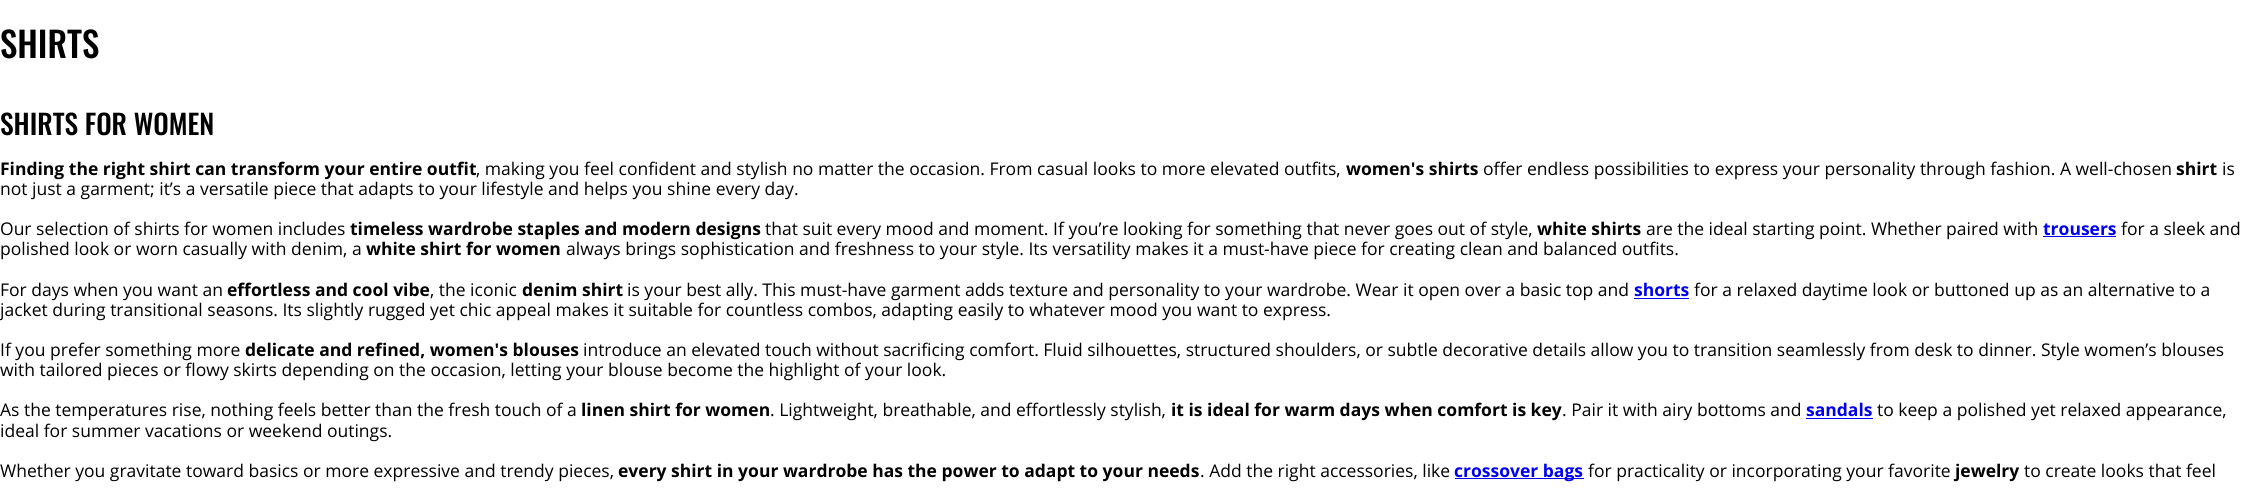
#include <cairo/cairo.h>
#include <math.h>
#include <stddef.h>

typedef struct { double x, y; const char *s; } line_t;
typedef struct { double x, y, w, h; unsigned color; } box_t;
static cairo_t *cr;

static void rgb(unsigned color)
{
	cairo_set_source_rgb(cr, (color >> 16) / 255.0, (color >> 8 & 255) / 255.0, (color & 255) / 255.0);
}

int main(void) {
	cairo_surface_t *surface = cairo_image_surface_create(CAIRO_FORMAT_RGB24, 2241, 488);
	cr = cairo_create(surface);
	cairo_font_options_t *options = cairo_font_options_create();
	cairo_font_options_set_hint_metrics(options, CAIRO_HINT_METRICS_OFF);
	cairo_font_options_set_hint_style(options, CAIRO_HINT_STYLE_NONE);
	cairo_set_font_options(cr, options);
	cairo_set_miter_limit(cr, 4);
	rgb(0xffffff);
	cairo_paint(cr);
	{
		static const box_t items[] = {
			{2043, 236, 73, 1, 0x0000ee},
			{1634, 298, 55, 1, 0x0000ee},
			{1806, 418, 67, 1, 0x0000ee},
			{1455, 478, 129, 1, 0x0000ee},
		};
		for (size_t i = 0; i < sizeof items / sizeof *items; i++) {
			rgb(items[i].color);
			cairo_rectangle(cr, items[i].x, items[i].y, items[i].w, items[i].h);
			cairo_fill(cr);
		}
	}
	cairo_select_font_face(cr, "Oswald Medium", CAIRO_FONT_SLANT_NORMAL, CAIRO_FONT_WEIGHT_NORMAL);
	cairo_set_font_size(cr, 35);
	rgb(0x000000);
	cairo_move_to(cr, 0, 58);
	cairo_show_text(cr, "SHIRTS");
	cairo_set_font_size(cr, 27.5);
	cairo_move_to(cr, 0, 135);
	cairo_show_text(cr, "SHIRTS FOR WOMEN");
	cairo_select_font_face(cr, "Open Sans", CAIRO_FONT_SLANT_NORMAL, CAIRO_FONT_WEIGHT_BOLD);
	cairo_set_font_size(cr, 17.5);
	cairo_move_to(cr, 0, 175);
	cairo_show_text(cr, "Finding the right shirt can transform your entire outfit");
	cairo_select_font_face(cr, "Open Sans", CAIRO_FONT_SLANT_NORMAL, CAIRO_FONT_WEIGHT_NORMAL);
	cairo_move_to(cr, 476, 175);
	cairo_show_text(cr, ", making you feel confident and stylish no matter the occasion. From casual looks to more elevated outfits,");
	cairo_select_font_face(cr, "Open Sans", CAIRO_FONT_SLANT_NORMAL, CAIRO_FONT_WEIGHT_BOLD);
	cairo_move_to(cr, 1346, 175);
	cairo_show_text(cr, "women's shirts");
	cairo_select_font_face(cr, "Open Sans", CAIRO_FONT_SLANT_NORMAL, CAIRO_FONT_WEIGHT_NORMAL);
	cairo_move_to(cr, 1483, 175);
	cairo_show_text(cr, "offer endless possibilities to express your personality through fashion. A well-chosen");
	cairo_select_font_face(cr, "Open Sans", CAIRO_FONT_SLANT_NORMAL, CAIRO_FONT_WEIGHT_BOLD);
	cairo_move_to(cr, 2176, 175);
	cairo_show_text(cr, "shirt");
	cairo_select_font_face(cr, "Open Sans", CAIRO_FONT_SLANT_NORMAL, CAIRO_FONT_WEIGHT_NORMAL);
	{
		static const line_t items[] = {
			{2222, 175, "is"},
			{0, 195, "not just a garment; it’s a versatile piece that adapts to your lifestyle and helps you shine every day."},
			{0, 235, "Our selection of shirts for women includes"},
		};
		for (size_t i = 0; i < sizeof items / sizeof *items; i++) {
			cairo_move_to(cr, items[i].x, items[i].y);
			cairo_show_text(cr, items[i].s);
		}
	}
	cairo_select_font_face(cr, "Open Sans", CAIRO_FONT_SLANT_NORMAL, CAIRO_FONT_WEIGHT_BOLD);
	cairo_move_to(cr, 350, 235);
	cairo_show_text(cr, "timeless wardrobe staples and modern designs");
	cairo_select_font_face(cr, "Open Sans", CAIRO_FONT_SLANT_NORMAL, CAIRO_FONT_WEIGHT_NORMAL);
	cairo_move_to(cr, 765, 235);
	cairo_show_text(cr, "that suit every mood and moment. If you’re looking for something that never goes out of style,");
	cairo_select_font_face(cr, "Open Sans", CAIRO_FONT_SLANT_NORMAL, CAIRO_FONT_WEIGHT_BOLD);
	cairo_move_to(cr, 1537, 235);
	cairo_show_text(cr, "white shirts");
	cairo_select_font_face(cr, "Open Sans", CAIRO_FONT_SLANT_NORMAL, CAIRO_FONT_WEIGHT_NORMAL);
	cairo_move_to(cr, 1646, 235);
	cairo_show_text(cr, "are the ideal starting point. Whether paired with");
	cairo_select_font_face(cr, "Open Sans", CAIRO_FONT_SLANT_NORMAL, CAIRO_FONT_WEIGHT_BOLD);
	rgb(0x0000ee);
	cairo_move_to(cr, 2043, 235);
	cairo_show_text(cr, "trousers");
	cairo_select_font_face(cr, "Open Sans", CAIRO_FONT_SLANT_NORMAL, CAIRO_FONT_WEIGHT_NORMAL);
	rgb(0x000000);
	cairo_move_to(cr, 2121, 235);
	cairo_show_text(cr, "for a sleek and");
	cairo_move_to(cr, 0, 255);
	cairo_show_text(cr, "polished look or worn casually with denim, a");
	cairo_select_font_face(cr, "Open Sans", CAIRO_FONT_SLANT_NORMAL, CAIRO_FONT_WEIGHT_BOLD);
	cairo_move_to(cr, 366, 255);
	cairo_show_text(cr, "white shirt for women");
	cairo_select_font_face(cr, "Open Sans", CAIRO_FONT_SLANT_NORMAL, CAIRO_FONT_WEIGHT_NORMAL);
	cairo_move_to(cr, 566, 255);
	cairo_show_text(cr, "always brings sophistication and freshness to your style. Its versatility makes it a must-have piece for creating clean and balanced outfits.");
	cairo_move_to(cr, 0, 296);
	cairo_show_text(cr, "For days when you want an");
	cairo_select_font_face(cr, "Open Sans", CAIRO_FONT_SLANT_NORMAL, CAIRO_FONT_WEIGHT_BOLD);
	cairo_move_to(cr, 227, 296);
	cairo_show_text(cr, "effortless and cool vibe");
	cairo_select_font_face(cr, "Open Sans", CAIRO_FONT_SLANT_NORMAL, CAIRO_FONT_WEIGHT_NORMAL);
	cairo_move_to(cr, 430, 296);
	cairo_show_text(cr, ", the iconic");
	cairo_select_font_face(cr, "Open Sans", CAIRO_FONT_SLANT_NORMAL, CAIRO_FONT_WEIGHT_BOLD);
	cairo_move_to(cr, 522, 296);
	cairo_show_text(cr, "denim shirt");
	cairo_select_font_face(cr, "Open Sans", CAIRO_FONT_SLANT_NORMAL, CAIRO_FONT_WEIGHT_NORMAL);
	cairo_move_to(cr, 627, 296);
	cairo_show_text(cr, "is your best ally. This must-have garment adds texture and personality to your wardrobe. Wear it open over a basic top and");
	cairo_select_font_face(cr, "Open Sans", CAIRO_FONT_SLANT_NORMAL, CAIRO_FONT_WEIGHT_BOLD);
	rgb(0x0000ee);
	cairo_move_to(cr, 1634, 296);
	cairo_show_text(cr, "shorts");
	cairo_select_font_face(cr, "Open Sans", CAIRO_FONT_SLANT_NORMAL, CAIRO_FONT_WEIGHT_NORMAL);
	rgb(0x000000);
	{
		static const line_t items[] = {
			{1694, 296, "for a relaxed daytime look or buttoned up as an alternative to a"},
			{0, 316, "jacket during transitional seasons. Its slightly rugged yet chic appeal makes it suitable for countless combos, adapting easily to whatever mood you want to express."},
			{0, 356, "If you prefer something more"},
		};
		for (size_t i = 0; i < sizeof items / sizeof *items; i++) {
			cairo_move_to(cr, items[i].x, items[i].y);
			cairo_show_text(cr, items[i].s);
		}
	}
	cairo_select_font_face(cr, "Open Sans", CAIRO_FONT_SLANT_NORMAL, CAIRO_FONT_WEIGHT_BOLD);
	cairo_move_to(cr, 245, 356);
	cairo_show_text(cr, "delicate and refined, women's blouses");
	cairo_select_font_face(cr, "Open Sans", CAIRO_FONT_SLANT_NORMAL, CAIRO_FONT_WEIGHT_NORMAL);
	{
		static const line_t items[] = {
			{583, 356, "introduce an elevated touch without sacrificing comfort. Fluid silhouettes, structured shoulders, or subtle decorative details allow you to transition seamlessly from desk to dinner. Style women’s blouses"},
			{0, 376, "with tailored pieces or flowy skirts depending on the occasion, letting your blouse become the highlight of your look."},
			{0, 416, "As the temperatures rise, nothing feels better than the fresh touch of a"},
		};
		for (size_t i = 0; i < sizeof items / sizeof *items; i++) {
			cairo_move_to(cr, items[i].x, items[i].y);
			cairo_show_text(cr, items[i].s);
		}
	}
	cairo_select_font_face(cr, "Open Sans", CAIRO_FONT_SLANT_NORMAL, CAIRO_FONT_WEIGHT_BOLD);
	cairo_move_to(cr, 581, 416);
	cairo_show_text(cr, "linen shirt for women");
	cairo_select_font_face(cr, "Open Sans", CAIRO_FONT_SLANT_NORMAL, CAIRO_FONT_WEIGHT_NORMAL);
	cairo_move_to(cr, 770, 416);
	cairo_show_text(cr, ". Lightweight, breathable, and effortlessly stylish,");
	cairo_select_font_face(cr, "Open Sans", CAIRO_FONT_SLANT_NORMAL, CAIRO_FONT_WEIGHT_BOLD);
	cairo_move_to(cr, 1171, 416);
	cairo_show_text(cr, "it is ideal for warm days when comfort is key");
	cairo_select_font_face(cr, "Open Sans", CAIRO_FONT_SLANT_NORMAL, CAIRO_FONT_WEIGHT_NORMAL);
	cairo_move_to(cr, 1562, 416);
	cairo_show_text(cr, ". Pair it with airy bottoms and");
	cairo_select_font_face(cr, "Open Sans", CAIRO_FONT_SLANT_NORMAL, CAIRO_FONT_WEIGHT_BOLD);
	rgb(0x0000ee);
	cairo_move_to(cr, 1806, 416);
	cairo_show_text(cr, "sandals");
	cairo_select_font_face(cr, "Open Sans", CAIRO_FONT_SLANT_NORMAL, CAIRO_FONT_WEIGHT_NORMAL);
	rgb(0x000000);
	{
		static const line_t items[] = {
			{1877, 416, "to keep a polished yet relaxed appearance,"},
			{0, 437, "ideal for summer vacations or weekend outings."},
			{0, 477, "Whether you gravitate toward basics or more expressive and trendy pieces,"},
		};
		for (size_t i = 0; i < sizeof items / sizeof *items; i++) {
			cairo_move_to(cr, items[i].x, items[i].y);
			cairo_show_text(cr, items[i].s);
		}
	}
	cairo_select_font_face(cr, "Open Sans", CAIRO_FONT_SLANT_NORMAL, CAIRO_FONT_WEIGHT_BOLD);
	cairo_move_to(cr, 618, 477);
	cairo_show_text(cr, "every shirt in your wardrobe has the power to adapt to your needs");
	cairo_select_font_face(cr, "Open Sans", CAIRO_FONT_SLANT_NORMAL, CAIRO_FONT_WEIGHT_NORMAL);
	cairo_move_to(cr, 1200, 477);
	cairo_show_text(cr, ". Add the right accessories, like");
	cairo_select_font_face(cr, "Open Sans", CAIRO_FONT_SLANT_NORMAL, CAIRO_FONT_WEIGHT_BOLD);
	rgb(0x0000ee);
	cairo_move_to(cr, 1454, 477);
	cairo_show_text(cr, "crossover bags");
	cairo_select_font_face(cr, "Open Sans", CAIRO_FONT_SLANT_NORMAL, CAIRO_FONT_WEIGHT_NORMAL);
	rgb(0x000000);
	cairo_move_to(cr, 1588, 477);
	cairo_show_text(cr, "for practicality or incorporating your favorite");
	cairo_select_font_face(cr, "Open Sans", CAIRO_FONT_SLANT_NORMAL, CAIRO_FONT_WEIGHT_BOLD);
	cairo_move_to(cr, 1955, 477);
	cairo_show_text(cr, "jewelry");
	cairo_select_font_face(cr, "Open Sans", CAIRO_FONT_SLANT_NORMAL, CAIRO_FONT_WEIGHT_NORMAL);
	cairo_move_to(cr, 2024, 477);
	cairo_show_text(cr, "to create looks that feel");
	cairo_surface_write_to_png(surface, "page.png");
	cairo_font_options_destroy(options);
	cairo_destroy(cr);
	cairo_surface_destroy(surface);
	return 0;
}
